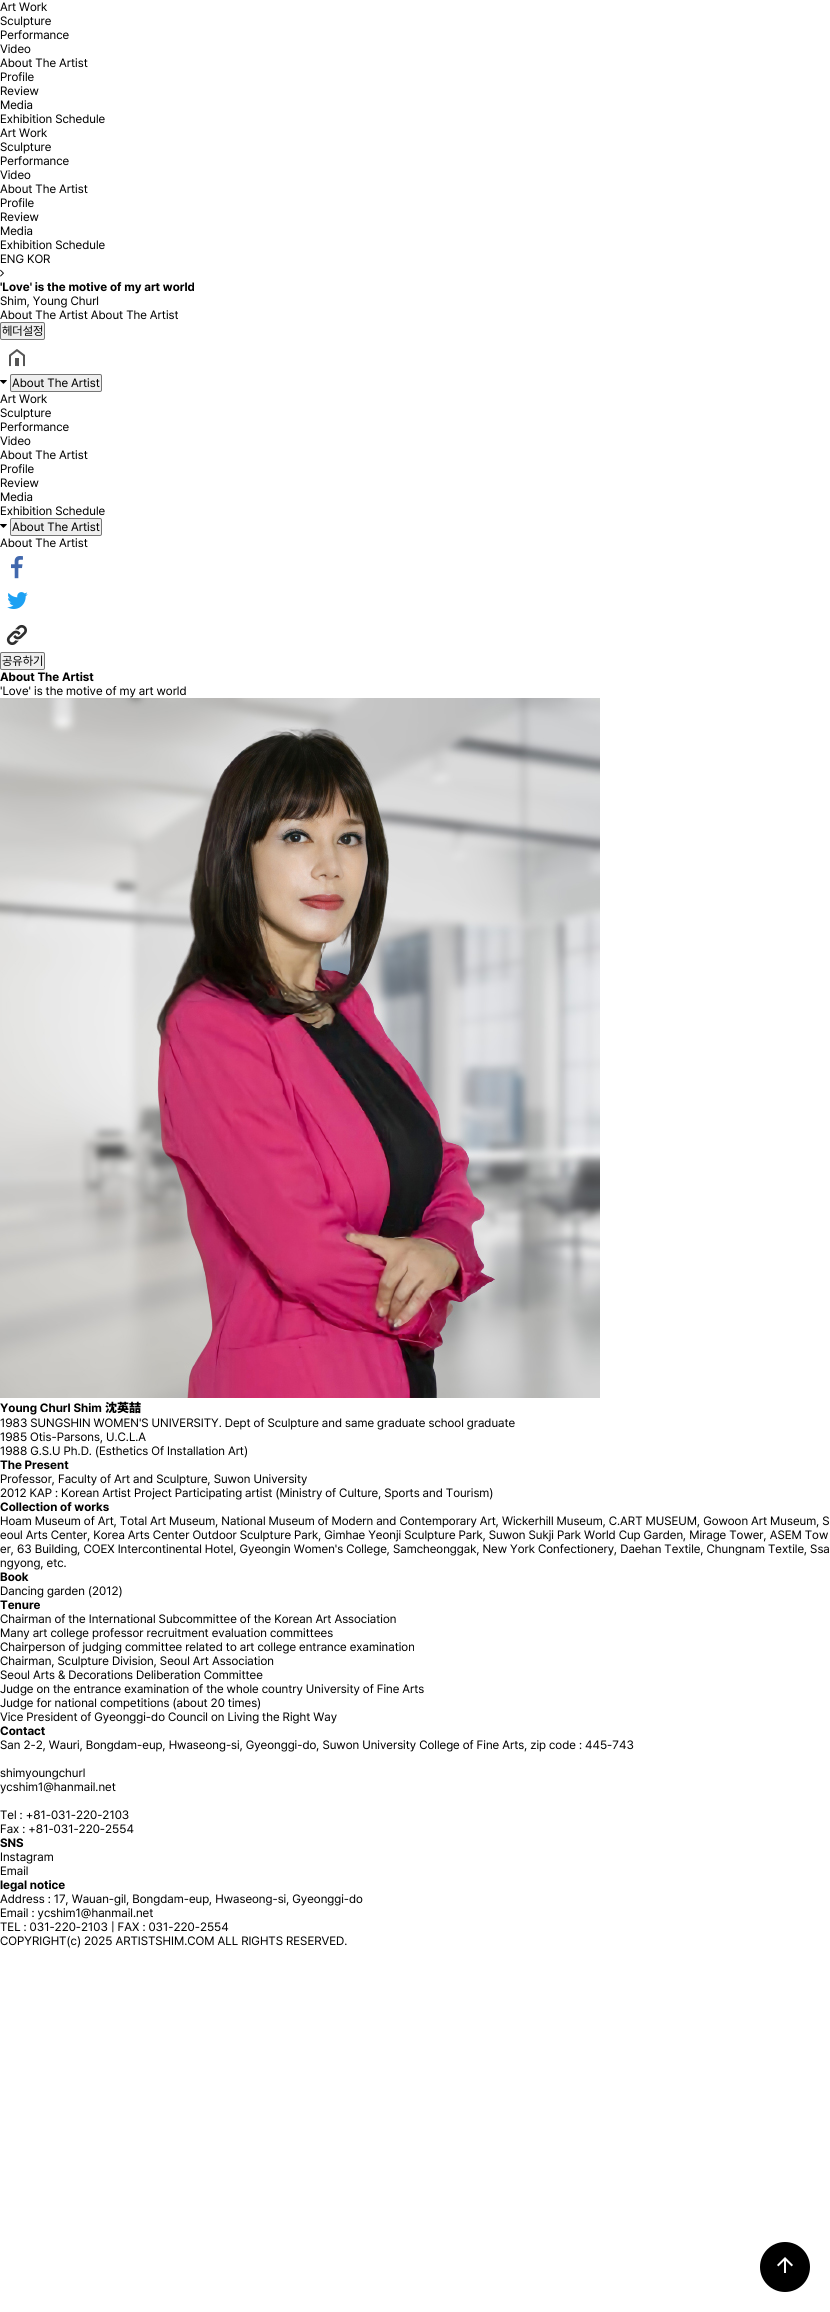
#include <cairo/cairo.h>
#include <math.h>
#include <stddef.h>

typedef struct { double x, y; const char *s; } line_t;
static cairo_t *cr;

static void rgb(unsigned color)
{
	cairo_set_source_rgb(cr, (color >> 16) / 255.0, (color >> 8 & 255) / 255.0, (color & 255) / 255.0);
}

static void rrect(double x, double y, double w, double h, double r)
{
	cairo_new_sub_path(cr);
	cairo_arc(cr, x + w - r, y + h - r, r, 0, M_PI / 2);
	cairo_arc(cr, x + r, y + h - r, r, M_PI / 2, M_PI);
	cairo_arc(cr, x + r, y + r, r, M_PI, 1.5 * M_PI);
	cairo_arc(cr, x + w - r, y + r, r, 1.5 * M_PI, 2 * M_PI);
	cairo_close_path(cr);
}

static void image(const char *path, double x, double y, double w, double h)
{
	cairo_surface_t *image = cairo_image_surface_create_from_png(path);
	cairo_save(cr);
	cairo_set_source_surface(cr, image, x, y);
	cairo_rectangle(cr, x, y, w, h);
	cairo_fill(cr);
	cairo_restore(cr);
	cairo_surface_destroy(image);
}

int main(void) {
	cairo_surface_t *surface = cairo_image_surface_create(CAIRO_FORMAT_RGB24, 830, 2312);
	cr = cairo_create(surface);
	cairo_font_options_t *options = cairo_font_options_create();
	cairo_font_options_set_hint_metrics(options, CAIRO_HINT_METRICS_OFF);
	cairo_font_options_set_hint_style(options, CAIRO_HINT_STYLE_NONE);
	cairo_set_font_options(cr, options);
	cairo_set_miter_limit(cr, 4);
	rgb(0xffffff);
	cairo_paint(cr);
	image("img/1.png", 0, 269, 4, 8);
	rgb(0xefefef);
	rrect(0.5, 322.5, 44, 17, 1.5);
	cairo_fill_preserve(cr);
	rgb(0x767676);
	cairo_set_line_width(cr, 1);
	cairo_stroke(cr);
	image("img/2.png", 9, 349, 16, 18);
	image("img/3.png", 0, 380, 7, 4);
	rgb(0xefefef);
	rrect(10.5, 374.5, 91, 17, 1.5);
	cairo_fill_preserve(cr);
	rgb(0x767676);
	cairo_stroke(cr);
	image("img/3.png", 0, 524, 7, 4);
	rgb(0xefefef);
	rrect(10.5, 518.5, 91, 17, 1.5);
	cairo_fill_preserve(cr);
	rgb(0x767676);
	cairo_stroke(cr);
	image("img/4.png", 11, 556, 12, 23);
	image("img/5.png", 7, 592, 21, 17);
	image("img/6.png", 6, 624, 21, 21);
	rgb(0xefefef);
	rrect(0.5, 652.5, 44, 17, 1.5);
	cairo_fill_preserve(cr);
	rgb(0x767676);
	cairo_stroke(cr);
	image("img/7.png", 0, 698, 600, 700);
	rgb(0x000000);
	cairo_arc(cr, 785, 2267, 25, 0, 2 * M_PI);
	cairo_fill(cr);
	image("img/8.png", 777, 2257, 16, 16);
	cairo_select_font_face(cr, "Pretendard", CAIRO_FONT_SLANT_NORMAL, CAIRO_FONT_WEIGHT_NORMAL);
	cairo_set_font_size(cr, 12);
	{
		static const line_t items[] = {
			{0, 11, "Art Work"},
			{0, 25, "Sculpture"},
			{0, 39, "Performance"},
			{0, 53, "Video"},
			{0, 67, "About The Artist"},
			{0, 81, "Profile"},
			{0, 95, "Review"},
			{0, 109, "Media"},
			{0, 123, "Exhibition Schedule"},
			{0, 137, "Art Work"},
			{0, 151, "Sculpture"},
			{0, 165, "Performance"},
			{0, 179, "Video"},
			{0, 193, "About The Artist"},
			{0, 207, "Profile"},
			{0, 221, "Review"},
			{0, 235, "Media"},
			{0, 249, "Exhibition Schedule"},
			{0, 263, "ENG KOR"},
		};
		for (size_t i = 0; i < sizeof items / sizeof *items; i++) {
			cairo_move_to(cr, items[i].x, items[i].y);
			cairo_show_text(cr, items[i].s);
		}
	}
	cairo_select_font_face(cr, "Pretendard", CAIRO_FONT_SLANT_NORMAL, CAIRO_FONT_WEIGHT_BOLD);
	cairo_move_to(cr, 0, 291);
	cairo_show_text(cr, "'Love' is the motive of my art world");
	cairo_select_font_face(cr, "Pretendard", CAIRO_FONT_SLANT_NORMAL, CAIRO_FONT_WEIGHT_NORMAL);
	{
		static const line_t items[] = {
			{0, 305, "Shim, Young Churl"},
			{0, 319, "About The Artist About The Artist"},
			{2, 335, "헤더설정"},
			{12, 387, "About The Artist"},
			{0, 403, "Art Work"},
			{0, 417, "Sculpture"},
			{0, 431, "Performance"},
			{0, 445, "Video"},
			{0, 459, "About The Artist"},
			{0, 473, "Profile"},
			{0, 487, "Review"},
			{0, 501, "Media"},
			{0, 515, "Exhibition Schedule"},
			{12, 531, "About The Artist"},
			{0, 547, "About The Artist"},
			{2, 665, "공유하기"},
		};
		for (size_t i = 0; i < sizeof items / sizeof *items; i++) {
			cairo_move_to(cr, items[i].x, items[i].y);
			cairo_show_text(cr, items[i].s);
		}
	}
	cairo_select_font_face(cr, "Pretendard", CAIRO_FONT_SLANT_NORMAL, CAIRO_FONT_WEIGHT_BOLD);
	cairo_move_to(cr, 0, 681);
	cairo_show_text(cr, "About The Artist");
	cairo_select_font_face(cr, "Pretendard", CAIRO_FONT_SLANT_NORMAL, CAIRO_FONT_WEIGHT_NORMAL);
	cairo_move_to(cr, 0, 695);
	cairo_show_text(cr, "'Love' is the motive of my art world");
	cairo_select_font_face(cr, "Pretendard", CAIRO_FONT_SLANT_NORMAL, CAIRO_FONT_WEIGHT_BOLD);
	cairo_move_to(cr, 0, 1412);
	cairo_show_text(cr, "Young Churl Shim");
	cairo_select_font_face(cr, "Noto Sans KR Black", CAIRO_FONT_SLANT_NORMAL, CAIRO_FONT_WEIGHT_NORMAL);
	cairo_move_to(cr, 105, 1412);
	cairo_show_text(cr, "沈英喆");
	cairo_select_font_face(cr, "Pretendard", CAIRO_FONT_SLANT_NORMAL, CAIRO_FONT_WEIGHT_NORMAL);
	{
		static const line_t items[] = {
			{0, 1427, "1983 SUNGSHIN WOMEN'S UNIVERSITY. Dept of Sculpture and same graduate school graduate"},
			{0, 1441, "1985 Otis-Parsons, U.C.L.A"},
			{0, 1455, "1988 G.S.U Ph.D. (Esthetics Of Installation Art)"},
		};
		for (size_t i = 0; i < sizeof items / sizeof *items; i++) {
			cairo_move_to(cr, items[i].x, items[i].y);
			cairo_show_text(cr, items[i].s);
		}
	}
	cairo_select_font_face(cr, "Pretendard", CAIRO_FONT_SLANT_NORMAL, CAIRO_FONT_WEIGHT_BOLD);
	cairo_move_to(cr, 0, 1469);
	cairo_show_text(cr, "The Present");
	cairo_select_font_face(cr, "Pretendard", CAIRO_FONT_SLANT_NORMAL, CAIRO_FONT_WEIGHT_NORMAL);
	cairo_move_to(cr, 0, 1483);
	cairo_show_text(cr, "Professor, Faculty of Art and Sculpture, Suwon University");
	cairo_move_to(cr, 0, 1497);
	cairo_show_text(cr, "2012 KAP : Korean Artist Project Participating artist (Ministry of Culture, Sports and Tourism)");
	cairo_select_font_face(cr, "Pretendard", CAIRO_FONT_SLANT_NORMAL, CAIRO_FONT_WEIGHT_BOLD);
	cairo_move_to(cr, 0, 1511);
	cairo_show_text(cr, "Collection of works");
	cairo_select_font_face(cr, "Pretendard", CAIRO_FONT_SLANT_NORMAL, CAIRO_FONT_WEIGHT_NORMAL);
	{
		static const line_t items[] = {
			{0, 1525, "Hoam Museum of Art, Total Art Museum, National Museum of Modern and Contemporary Art, Wickerhill Museum, C.ART MUSEUM, Gowoon Art Museum, S"},
			{0, 1539, "eoul Arts Center, Korea Arts Center Outdoor Sculpture Park, Gimhae Yeonji Sculpture Park, Suwon Sukji Park World Cup Garden, Mirage Tower, ASEM Tow"},
			{0, 1553, "er, 63 Building, COEX Intercontinental Hotel, Gyeongin Women's College, Samcheonggak, New York Confectionery, Daehan Textile, Chungnam Textile, Ssa"},
			{0, 1567, "ngyong, etc."},
		};
		for (size_t i = 0; i < sizeof items / sizeof *items; i++) {
			cairo_move_to(cr, items[i].x, items[i].y);
			cairo_show_text(cr, items[i].s);
		}
	}
	cairo_select_font_face(cr, "Pretendard", CAIRO_FONT_SLANT_NORMAL, CAIRO_FONT_WEIGHT_BOLD);
	cairo_move_to(cr, 0, 1581);
	cairo_show_text(cr, "Book");
	cairo_select_font_face(cr, "Pretendard", CAIRO_FONT_SLANT_NORMAL, CAIRO_FONT_WEIGHT_NORMAL);
	cairo_move_to(cr, 0, 1595);
	cairo_show_text(cr, "Dancing garden (2012)");
	cairo_select_font_face(cr, "Pretendard", CAIRO_FONT_SLANT_NORMAL, CAIRO_FONT_WEIGHT_BOLD);
	cairo_move_to(cr, 0, 1609);
	cairo_show_text(cr, "Tenure");
	cairo_select_font_face(cr, "Pretendard", CAIRO_FONT_SLANT_NORMAL, CAIRO_FONT_WEIGHT_NORMAL);
	{
		static const line_t items[] = {
			{0, 1623, "Chairman of the International Subcommittee of the Korean Art Association"},
			{0, 1637, "Many art college professor recruitment evaluation committees"},
			{0, 1651, "Chairperson of judging committee related to art college entrance examination"},
			{0, 1665, "Chairman, Sculpture Division, Seoul Art Association"},
			{0, 1679, "Seoul Arts & Decorations Deliberation Committee"},
			{0, 1693, "Judge on the entrance examination of the whole country University of Fine Arts"},
			{0, 1707, "Judge for national competitions (about 20 times)"},
			{0, 1721, "Vice President of Gyeonggi-do Council on Living the Right Way"},
		};
		for (size_t i = 0; i < sizeof items / sizeof *items; i++) {
			cairo_move_to(cr, items[i].x, items[i].y);
			cairo_show_text(cr, items[i].s);
		}
	}
	cairo_select_font_face(cr, "Pretendard", CAIRO_FONT_SLANT_NORMAL, CAIRO_FONT_WEIGHT_BOLD);
	cairo_move_to(cr, 0, 1735);
	cairo_show_text(cr, "Contact");
	cairo_select_font_face(cr, "Pretendard", CAIRO_FONT_SLANT_NORMAL, CAIRO_FONT_WEIGHT_NORMAL);
	{
		static const line_t items[] = {
			{0, 1749, "San 2-2, Wauri, Bongdam-eup, Hwaseong-si, Gyeonggi-do, Suwon University College of Fine Arts, zip code : 445-743"},
			{0, 1777, "shimyoungchurl"},
			{0, 1791, "ycshim1@hanmail.net"},
			{0, 1819, "Tel : +81-031-220-2103"},
			{0, 1833, "Fax : +81-031-220-2554"},
		};
		for (size_t i = 0; i < sizeof items / sizeof *items; i++) {
			cairo_move_to(cr, items[i].x, items[i].y);
			cairo_show_text(cr, items[i].s);
		}
	}
	cairo_select_font_face(cr, "Pretendard", CAIRO_FONT_SLANT_NORMAL, CAIRO_FONT_WEIGHT_BOLD);
	cairo_move_to(cr, 0, 1847);
	cairo_show_text(cr, "SNS");
	cairo_select_font_face(cr, "Pretendard", CAIRO_FONT_SLANT_NORMAL, CAIRO_FONT_WEIGHT_NORMAL);
	cairo_move_to(cr, 0, 1861);
	cairo_show_text(cr, "Instagram");
	cairo_move_to(cr, 0, 1875);
	cairo_show_text(cr, "Email");
	cairo_select_font_face(cr, "Pretendard", CAIRO_FONT_SLANT_NORMAL, CAIRO_FONT_WEIGHT_BOLD);
	cairo_move_to(cr, 0, 1889);
	cairo_show_text(cr, "legal notice");
	cairo_select_font_face(cr, "Pretendard", CAIRO_FONT_SLANT_NORMAL, CAIRO_FONT_WEIGHT_NORMAL);
	{
		static const line_t items[] = {
			{0, 1903, "Address : 17, Wauan-gil, Bongdam-eup, Hwaseong-si, Gyeonggi-do"},
			{0, 1917, "Email : ycshim1@hanmail.net"},
			{0, 1931, "TEL : 031-220-2103 | FAX : 031-220-2554"},
			{0, 1945, "COPYRIGHT(c) 2025 ARTISTSHIM.COM ALL RIGHTS RESERVED."},
		};
		for (size_t i = 0; i < sizeof items / sizeof *items; i++) {
			cairo_move_to(cr, items[i].x, items[i].y);
			cairo_show_text(cr, items[i].s);
		}
	}
	cairo_surface_write_to_png(surface, "page.png");
	cairo_font_options_destroy(options);
	cairo_destroy(cr);
	cairo_surface_destroy(surface);
	return 0;
}
